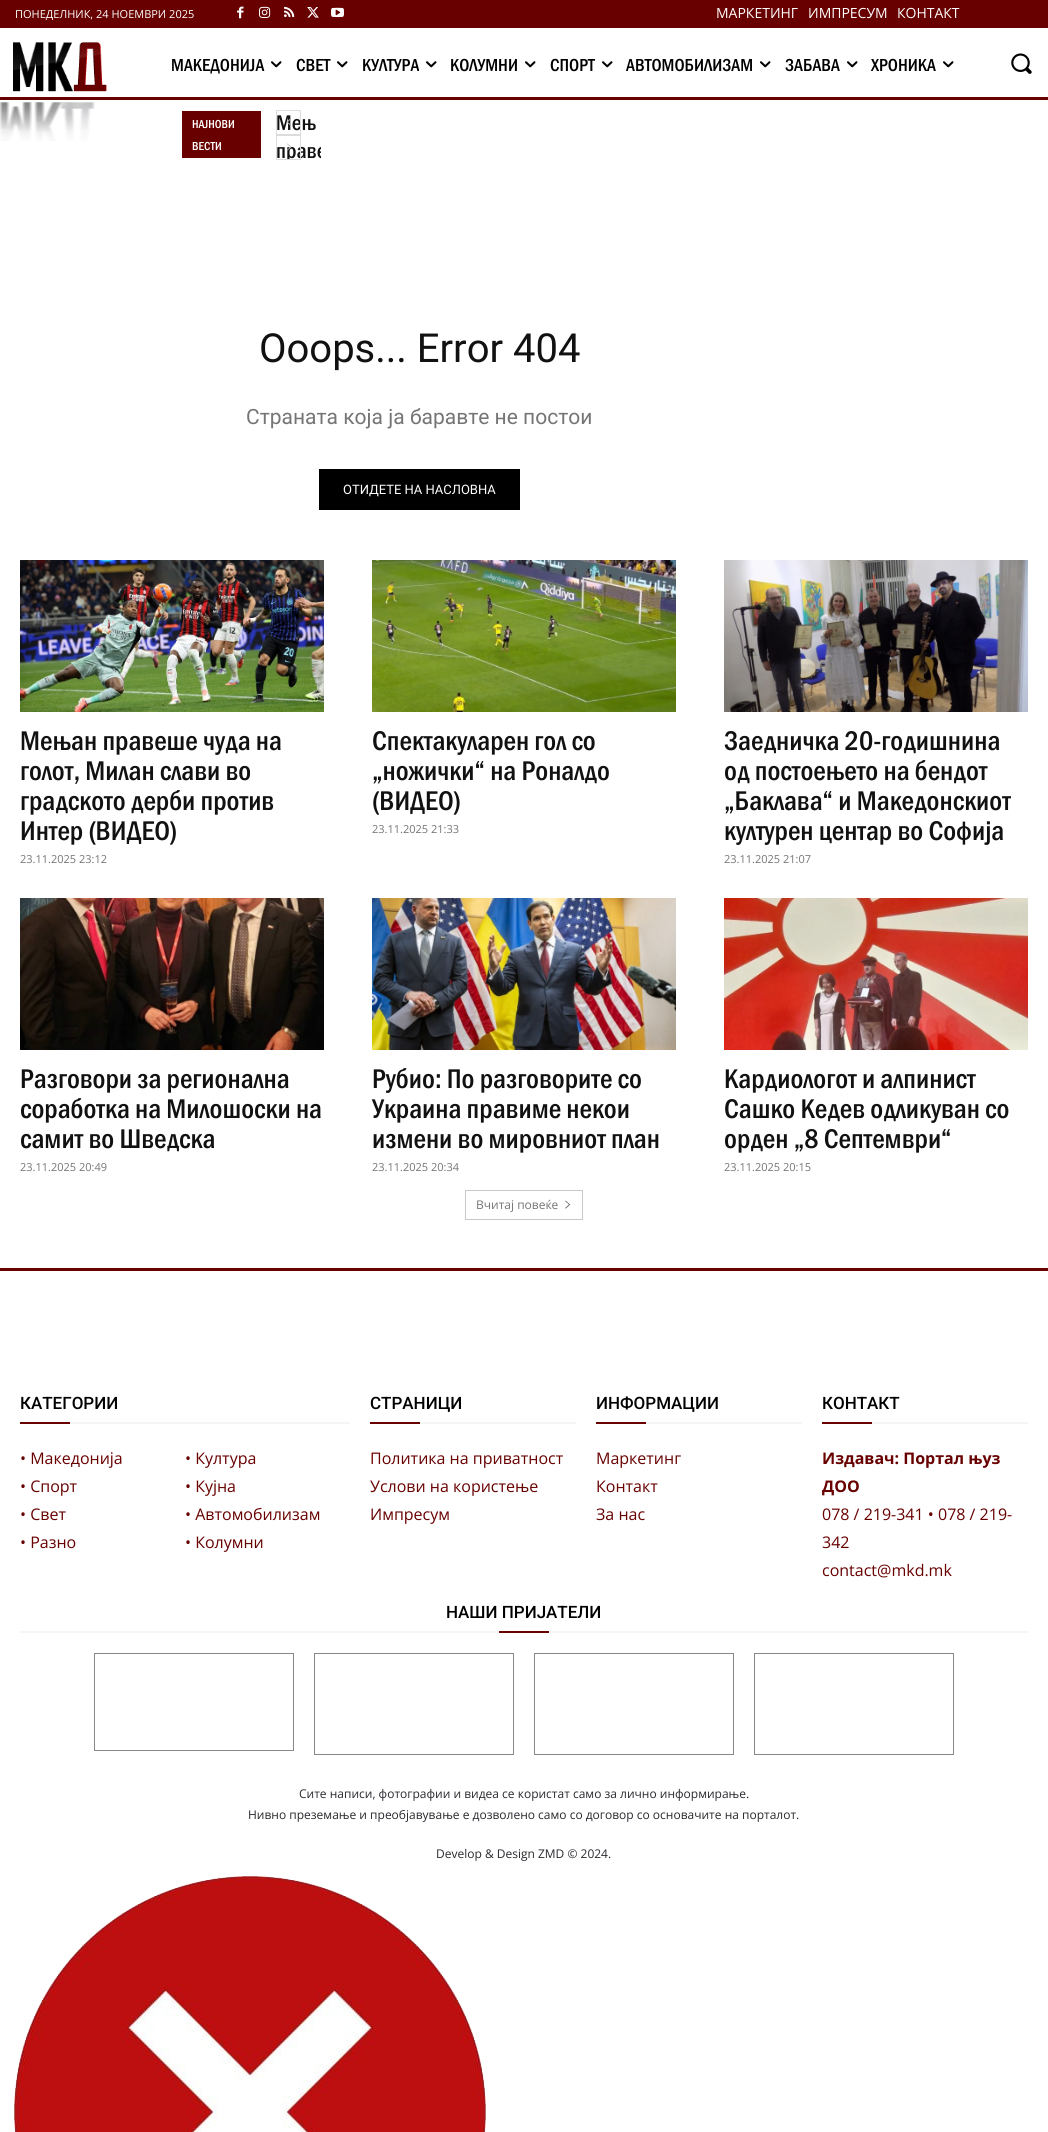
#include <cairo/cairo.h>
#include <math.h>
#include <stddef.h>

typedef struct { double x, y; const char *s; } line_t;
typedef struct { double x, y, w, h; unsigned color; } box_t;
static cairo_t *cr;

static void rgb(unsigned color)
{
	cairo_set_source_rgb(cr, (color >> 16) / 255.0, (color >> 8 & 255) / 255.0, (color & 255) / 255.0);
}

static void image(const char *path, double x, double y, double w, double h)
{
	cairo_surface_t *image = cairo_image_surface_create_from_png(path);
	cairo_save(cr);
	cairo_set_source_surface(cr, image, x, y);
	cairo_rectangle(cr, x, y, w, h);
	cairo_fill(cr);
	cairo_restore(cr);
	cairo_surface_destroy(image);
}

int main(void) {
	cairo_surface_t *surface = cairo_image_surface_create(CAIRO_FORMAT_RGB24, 1048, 2132);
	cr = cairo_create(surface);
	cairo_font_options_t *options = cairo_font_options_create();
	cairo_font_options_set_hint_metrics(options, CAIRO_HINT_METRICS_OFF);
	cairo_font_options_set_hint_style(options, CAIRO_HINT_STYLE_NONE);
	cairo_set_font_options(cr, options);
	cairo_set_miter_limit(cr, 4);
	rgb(0xffffff);
	cairo_paint(cr);
	rgb(0x680000);
	cairo_rectangle(cr, 0, 0, 1048, 28);
	cairo_fill(cr);
	image("img/1.png", 237, 6, 7, 13);
	image("img/2.png", 259, 6, 12, 12);
	image("img/3.png", 284, 6, 11, 12);
	image("img/4.png", 307, 7, 12, 11);
	image("img/5.png", 331, 7, 13, 11);
	image("img/6.png", 13, 42, 94, 50);
	image("img/7.png", 271, 61, 11, 7);
	image("img/7.png", 337, 61, 11, 7);
	image("img/7.png", 426, 61, 11, 7);
	image("img/7.png", 525, 61, 11, 7);
	image("img/7.png", 602, 61, 11, 7);
	image("img/7.png", 760, 61, 11, 7);
	image("img/7.png", 847, 61, 11, 7);
	image("img/7.png", 943, 61, 11, 7);
	image("img/8.png", 1011, 53, 21, 21);
	cairo_rectangle(cr, 0, 97, 1048, 3);
	cairo_fill(cr);
	image("img/9.png", 0, 102, 95, 39);
	cairo_rectangle(cr, 182, 111, 79, 47);
	cairo_fill(cr);
	rgb(0x000000);
	cairo_rectangle(cr, 319, 469, 201, 41);
	cairo_fill(cr);
	image("img/12.png", 20, 560, 304, 152);
	image("img/13.png", 372, 560, 304, 152);
	image("img/14.png", 724, 560, 304, 152);
	image("img/15.png", 20, 898, 304, 152);
	image("img/16.png", 372, 898, 304, 152);
	image("img/17.png", 724, 898, 304, 152);
	cairo_rectangle(cr, 465.5, 1190.5, 117, 29);
	rgb(0xc9c9c9);
	cairo_set_line_width(cr, 1);
	cairo_stroke(cr);
	image("img/18.png", 565, 1200, 6, 9);
	{
		static const box_t items[] = {
			{0, 1268, 1048, 3, 0x680000},
			{20, 1422, 50, 2, 0x680000},
			{70, 1422, 280, 2, 0xf5f5f5},
			{370, 1422, 50, 2, 0x680000},
			{420, 1422, 156, 2, 0xf5f5f5},
			{596, 1422, 50, 2, 0x680000},
			{646, 1422, 156, 2, 0xf5f5f5},
			{822, 1422, 50, 2, 0x680000},
			{872, 1422, 156, 2, 0xf5f5f5},
			{20, 1631, 1008, 2, 0xf5f5f5},
			{499, 1631, 50, 2, 0x680000},
		};
		for (size_t i = 0; i < sizeof items / sizeof *items; i++) {
			rgb(items[i].color);
			cairo_rectangle(cr, items[i].x, items[i].y, items[i].w, items[i].h);
			cairo_fill(cr);
		}
	}
	cairo_rectangle(cr, 94.5, 1653.5, 199, 97);
	rgb(0x888888);
	cairo_stroke(cr);
	cairo_rectangle(cr, 314.5, 1653.5, 199, 101);
	cairo_stroke(cr);
	cairo_rectangle(cr, 534.5, 1653.5, 199, 101);
	cairo_stroke(cr);
	cairo_rectangle(cr, 754.5, 1653.5, 199, 101);
	cairo_stroke(cr);
	image("img/19.png", 14, 1876, 472, 256);
	cairo_select_font_face(cr, "Open Sans", CAIRO_FONT_SLANT_NORMAL, CAIRO_FONT_WEIGHT_NORMAL);
	cairo_set_font_size(cr, 11);
	rgb(0xffffff);
	cairo_move_to(cr, 15, 18);
	cairo_show_text(cr, "ПОНЕДЕЛНИК, 24 НОЕМВРИ 2025");
	cairo_set_font_size(cr, 14);
	{
		static const line_t items[] = {
			{716, 18, "МАРКЕТИНГ"},
			{808, 18, "ИМПРЕСУМ"},
			{897, 18, "КОНТАКТ"},
		};
		for (size_t i = 0; i < sizeof items / sizeof *items; i++) {
			cairo_move_to(cr, items[i].x, items[i].y);
			cairo_show_text(cr, items[i].s);
		}
	}
	cairo_select_font_face(cr, "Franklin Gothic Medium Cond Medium", CAIRO_FONT_SLANT_NORMAL, CAIRO_FONT_WEIGHT_NORMAL);
	cairo_set_font_size(cr, 18);
	rgb(0x000000);
	{
		static const line_t items[] = {
			{171, 71, "МАКЕДОНИЈА"},
			{296, 71, "СВЕТ"},
			{362, 71, "КУЛТУРА"},
			{450, 71, "КОЛУМНИ"},
			{550, 71, "СПОРТ"},
			{626, 71, "АВТОМОБИЛИЗАМ"},
			{785, 71, "ЗАБАВА"},
			{871, 71, "ХРОНИКА"},
		};
		for (size_t i = 0; i < sizeof items / sizeof *items; i++) {
			cairo_move_to(cr, items[i].x, items[i].y);
			cairo_show_text(cr, items[i].s);
		}
	}
	cairo_set_font_size(cr, 12);
	rgb(0xffffff);
	cairo_move_to(cr, 192, 128);
	cairo_show_text(cr, "НАЈНОВИ");
	cairo_move_to(cr, 192, 150);
	cairo_show_text(cr, "ВЕСТИ");
	cairo_set_font_size(cr, 22);
	rgb(0x111111);
	cairo_move_to(cr, 276, 130);
	cairo_show_text(cr, "Мењ");
	cairo_rectangle(cr, 276.5, 110.5, 24, 24);
	rgb(0xdcdcdc);
	cairo_stroke(cr);
	image("img/10.png", 286, 119, 4, 6);
	cairo_save(cr);
	cairo_rectangle(cr, 276, 110, 45, 50);
	cairo_clip(cr);
	rgb(0x111111);
	cairo_move_to(cr, 276, 158);
	cairo_show_text(cr, "праве");
	cairo_restore(cr);
	cairo_rectangle(cr, 276.5, 135.5, 24, 24);
	cairo_stroke(cr);
	image("img/11.png", 287, 143, 5, 8);
	cairo_select_font_face(cr, "Roboto", CAIRO_FONT_SLANT_NORMAL, CAIRO_FONT_WEIGHT_NORMAL);
	cairo_set_font_size(cr, 40);
	rgb(0x111111);
	cairo_move_to(cr, 259, 362);
	cairo_show_text(cr, "Ooops... Error 404");
	cairo_set_font_size(cr, 21);
	rgb(0x757575);
	cairo_move_to(cr, 246, 424);
	cairo_show_text(cr, "Страната која ја баравте не постои");
	cairo_set_font_size(cr, 13);
	rgb(0xffffff);
	cairo_move_to(cr, 343, 494);
	cairo_show_text(cr, "ОТИДЕТЕ НА НАСЛОВНА");
	cairo_select_font_face(cr, "Franklin Gothic Medium Cond Medium", CAIRO_FONT_SLANT_NORMAL, CAIRO_FONT_WEIGHT_NORMAL);
	cairo_set_font_size(cr, 28);
	rgb(0x111111);
	{
		static const line_t items[] = {
			{20, 750, "Мењан правеше чуда на"},
			{20, 780, "голот, Милан слави во"},
			{20, 810, "градското дерби против"},
			{20, 840, "Интер (ВИДЕО)"},
		};
		for (size_t i = 0; i < sizeof items / sizeof *items; i++) {
			cairo_move_to(cr, items[i].x, items[i].y);
			cairo_show_text(cr, items[i].s);
		}
	}
	cairo_select_font_face(cr, "Open Sans", CAIRO_FONT_SLANT_NORMAL, CAIRO_FONT_WEIGHT_NORMAL);
	cairo_set_font_size(cr, 11);
	rgb(0x757575);
	cairo_move_to(cr, 20, 863);
	cairo_show_text(cr, "23.11.2025 23:12");
	cairo_select_font_face(cr, "Franklin Gothic Medium Cond Medium", CAIRO_FONT_SLANT_NORMAL, CAIRO_FONT_WEIGHT_NORMAL);
	cairo_set_font_size(cr, 28);
	rgb(0x111111);
	{
		static const line_t items[] = {
			{372, 750, "Спектакуларен гол со"},
			{372, 780, "„ножички“ на Роналдо"},
			{372, 810, "(ВИДЕО)"},
		};
		for (size_t i = 0; i < sizeof items / sizeof *items; i++) {
			cairo_move_to(cr, items[i].x, items[i].y);
			cairo_show_text(cr, items[i].s);
		}
	}
	cairo_select_font_face(cr, "Open Sans", CAIRO_FONT_SLANT_NORMAL, CAIRO_FONT_WEIGHT_NORMAL);
	cairo_set_font_size(cr, 11);
	rgb(0x757575);
	cairo_move_to(cr, 372, 833);
	cairo_show_text(cr, "23.11.2025 21:33");
	cairo_select_font_face(cr, "Franklin Gothic Medium Cond Medium", CAIRO_FONT_SLANT_NORMAL, CAIRO_FONT_WEIGHT_NORMAL);
	cairo_set_font_size(cr, 28);
	rgb(0x111111);
	{
		static const line_t items[] = {
			{724, 750, "Заедничка 20-годишнина"},
			{724, 780, "од постоењето на бендот"},
			{724, 810, "„Баклава“ и Македонскиот"},
			{724, 840, "културен центар во Софија"},
		};
		for (size_t i = 0; i < sizeof items / sizeof *items; i++) {
			cairo_move_to(cr, items[i].x, items[i].y);
			cairo_show_text(cr, items[i].s);
		}
	}
	cairo_select_font_face(cr, "Open Sans", CAIRO_FONT_SLANT_NORMAL, CAIRO_FONT_WEIGHT_NORMAL);
	cairo_set_font_size(cr, 11);
	rgb(0x757575);
	cairo_move_to(cr, 724, 863);
	cairo_show_text(cr, "23.11.2025 21:07");
	cairo_select_font_face(cr, "Franklin Gothic Medium Cond Medium", CAIRO_FONT_SLANT_NORMAL, CAIRO_FONT_WEIGHT_NORMAL);
	cairo_set_font_size(cr, 28);
	rgb(0x111111);
	{
		static const line_t items[] = {
			{20, 1088, "Разговори за регионална"},
			{20, 1118, "соработка на Милошоски на"},
			{20, 1148, "самит во Шведска"},
		};
		for (size_t i = 0; i < sizeof items / sizeof *items; i++) {
			cairo_move_to(cr, items[i].x, items[i].y);
			cairo_show_text(cr, items[i].s);
		}
	}
	cairo_select_font_face(cr, "Open Sans", CAIRO_FONT_SLANT_NORMAL, CAIRO_FONT_WEIGHT_NORMAL);
	cairo_set_font_size(cr, 11);
	rgb(0x757575);
	cairo_move_to(cr, 20, 1171);
	cairo_show_text(cr, "23.11.2025 20:49");
	cairo_select_font_face(cr, "Franklin Gothic Medium Cond Medium", CAIRO_FONT_SLANT_NORMAL, CAIRO_FONT_WEIGHT_NORMAL);
	cairo_set_font_size(cr, 28);
	rgb(0x111111);
	{
		static const line_t items[] = {
			{372, 1088, "Рубио: По разговорите со"},
			{372, 1118, "Украина правиме некои"},
			{372, 1148, "измени во мировниот план"},
		};
		for (size_t i = 0; i < sizeof items / sizeof *items; i++) {
			cairo_move_to(cr, items[i].x, items[i].y);
			cairo_show_text(cr, items[i].s);
		}
	}
	cairo_select_font_face(cr, "Open Sans", CAIRO_FONT_SLANT_NORMAL, CAIRO_FONT_WEIGHT_NORMAL);
	cairo_set_font_size(cr, 11);
	rgb(0x757575);
	cairo_move_to(cr, 372, 1171);
	cairo_show_text(cr, "23.11.2025 20:34");
	cairo_select_font_face(cr, "Franklin Gothic Medium Cond Medium", CAIRO_FONT_SLANT_NORMAL, CAIRO_FONT_WEIGHT_NORMAL);
	cairo_set_font_size(cr, 28);
	rgb(0x111111);
	{
		static const line_t items[] = {
			{724, 1088, "Кардиологот и алпинист"},
			{724, 1118, "Сашко Кедев одликуван со"},
			{724, 1148, "орден „8 Септември“"},
		};
		for (size_t i = 0; i < sizeof items / sizeof *items; i++) {
			cairo_move_to(cr, items[i].x, items[i].y);
			cairo_show_text(cr, items[i].s);
		}
	}
	cairo_select_font_face(cr, "Open Sans", CAIRO_FONT_SLANT_NORMAL, CAIRO_FONT_WEIGHT_NORMAL);
	cairo_set_font_size(cr, 11);
	rgb(0x757575);
	cairo_move_to(cr, 724, 1171);
	cairo_show_text(cr, "23.11.2025 20:15");
	cairo_set_font_size(cr, 12);
	cairo_move_to(cr, 476, 1209);
	cairo_show_text(cr, "Вчитај повеќе");
	cairo_select_font_face(cr, "Roboto Medium", CAIRO_FONT_SLANT_NORMAL, CAIRO_FONT_WEIGHT_NORMAL);
	cairo_set_font_size(cr, 17);
	rgb(0x000000);
	cairo_move_to(cr, 20, 1409);
	cairo_show_text(cr, "КАТЕГОРИИ");
	cairo_select_font_face(cr, "Open Sans", CAIRO_FONT_SLANT_NORMAL, CAIRO_FONT_WEIGHT_NORMAL);
	cairo_set_font_size(cr, 16);
	rgb(0x680000);
	{
		static const line_t items[] = {
			{20, 1464, "• Македонија"},
			{20, 1492, "• Спорт"},
			{20, 1520, "• Свет"},
			{20, 1548, "• Разно"},
			{185, 1464, "• Култура"},
			{185, 1492, "• Кујна"},
			{185, 1520, "• Автомобилизам"},
			{185, 1548, "• Колумни"},
		};
		for (size_t i = 0; i < sizeof items / sizeof *items; i++) {
			cairo_move_to(cr, items[i].x, items[i].y);
			cairo_show_text(cr, items[i].s);
		}
	}
	cairo_select_font_face(cr, "Roboto Medium", CAIRO_FONT_SLANT_NORMAL, CAIRO_FONT_WEIGHT_NORMAL);
	cairo_set_font_size(cr, 17);
	rgb(0x000000);
	cairo_move_to(cr, 370, 1409);
	cairo_show_text(cr, "СТРАНИЦИ");
	cairo_select_font_face(cr, "Open Sans", CAIRO_FONT_SLANT_NORMAL, CAIRO_FONT_WEIGHT_NORMAL);
	cairo_set_font_size(cr, 16);
	rgb(0x680000);
	{
		static const line_t items[] = {
			{370, 1464, "Политика на приватност"},
			{370, 1492, "Услови на користење"},
			{370, 1520, "Импресум"},
		};
		for (size_t i = 0; i < sizeof items / sizeof *items; i++) {
			cairo_move_to(cr, items[i].x, items[i].y);
			cairo_show_text(cr, items[i].s);
		}
	}
	cairo_select_font_face(cr, "Roboto Medium", CAIRO_FONT_SLANT_NORMAL, CAIRO_FONT_WEIGHT_NORMAL);
	cairo_set_font_size(cr, 17);
	rgb(0x000000);
	cairo_move_to(cr, 596, 1409);
	cairo_show_text(cr, "ИНФОРМАЦИИ");
	cairo_select_font_face(cr, "Open Sans", CAIRO_FONT_SLANT_NORMAL, CAIRO_FONT_WEIGHT_NORMAL);
	cairo_set_font_size(cr, 16);
	rgb(0x680000);
	{
		static const line_t items[] = {
			{596, 1464, "Маркетинг"},
			{596, 1492, "Контакт"},
			{596, 1520, "За нас"},
		};
		for (size_t i = 0; i < sizeof items / sizeof *items; i++) {
			cairo_move_to(cr, items[i].x, items[i].y);
			cairo_show_text(cr, items[i].s);
		}
	}
	cairo_select_font_face(cr, "Roboto Medium", CAIRO_FONT_SLANT_NORMAL, CAIRO_FONT_WEIGHT_NORMAL);
	cairo_set_font_size(cr, 17);
	rgb(0x000000);
	cairo_move_to(cr, 822, 1409);
	cairo_show_text(cr, "КОНТАКТ");
	cairo_select_font_face(cr, "Open Sans", CAIRO_FONT_SLANT_NORMAL, CAIRO_FONT_WEIGHT_BOLD);
	cairo_set_font_size(cr, 16);
	rgb(0x680000);
	cairo_move_to(cr, 822, 1464);
	cairo_show_text(cr, "Издавач: Портал њуз");
	cairo_move_to(cr, 822, 1492);
	cairo_show_text(cr, "ДОО");
	cairo_select_font_face(cr, "Open Sans", CAIRO_FONT_SLANT_NORMAL, CAIRO_FONT_WEIGHT_NORMAL);
	{
		static const line_t items[] = {
			{822, 1520, "078 / 219-341 • 078 / 219-"},
			{822, 1548, "342"},
			{822, 1576, "contact@mkd.mk"},
		};
		for (size_t i = 0; i < sizeof items / sizeof *items; i++) {
			cairo_move_to(cr, items[i].x, items[i].y);
			cairo_show_text(cr, items[i].s);
		}
	}
	cairo_select_font_face(cr, "Roboto Medium", CAIRO_FONT_SLANT_NORMAL, CAIRO_FONT_WEIGHT_NORMAL);
	cairo_set_font_size(cr, 17);
	rgb(0x000000);
	cairo_move_to(cr, 446, 1618);
	cairo_show_text(cr, "НАШИ ПРИЈАТЕЛИ");
	cairo_select_font_face(cr, "Open Sans", CAIRO_FONT_SLANT_NORMAL, CAIRO_FONT_WEIGHT_NORMAL);
	cairo_set_font_size(cr, 12);
	rgb(0x29292f);
	{
		static const line_t items[] = {
			{299, 1798, "Сите написи, фотографии и видеа се користат само за лично информирање."},
			{248, 1819, "Нивно преземање и преобјавување е дозволено само со договор со основачите на порталот."},
			{436, 1858, "Develop & Design ZMD © 2024."},
		};
		for (size_t i = 0; i < sizeof items / sizeof *items; i++) {
			cairo_move_to(cr, items[i].x, items[i].y);
			cairo_show_text(cr, items[i].s);
		}
	}
	cairo_surface_write_to_png(surface, "page.png");
	cairo_font_options_destroy(options);
	cairo_destroy(cr);
	cairo_surface_destroy(surface);
	return 0;
}
